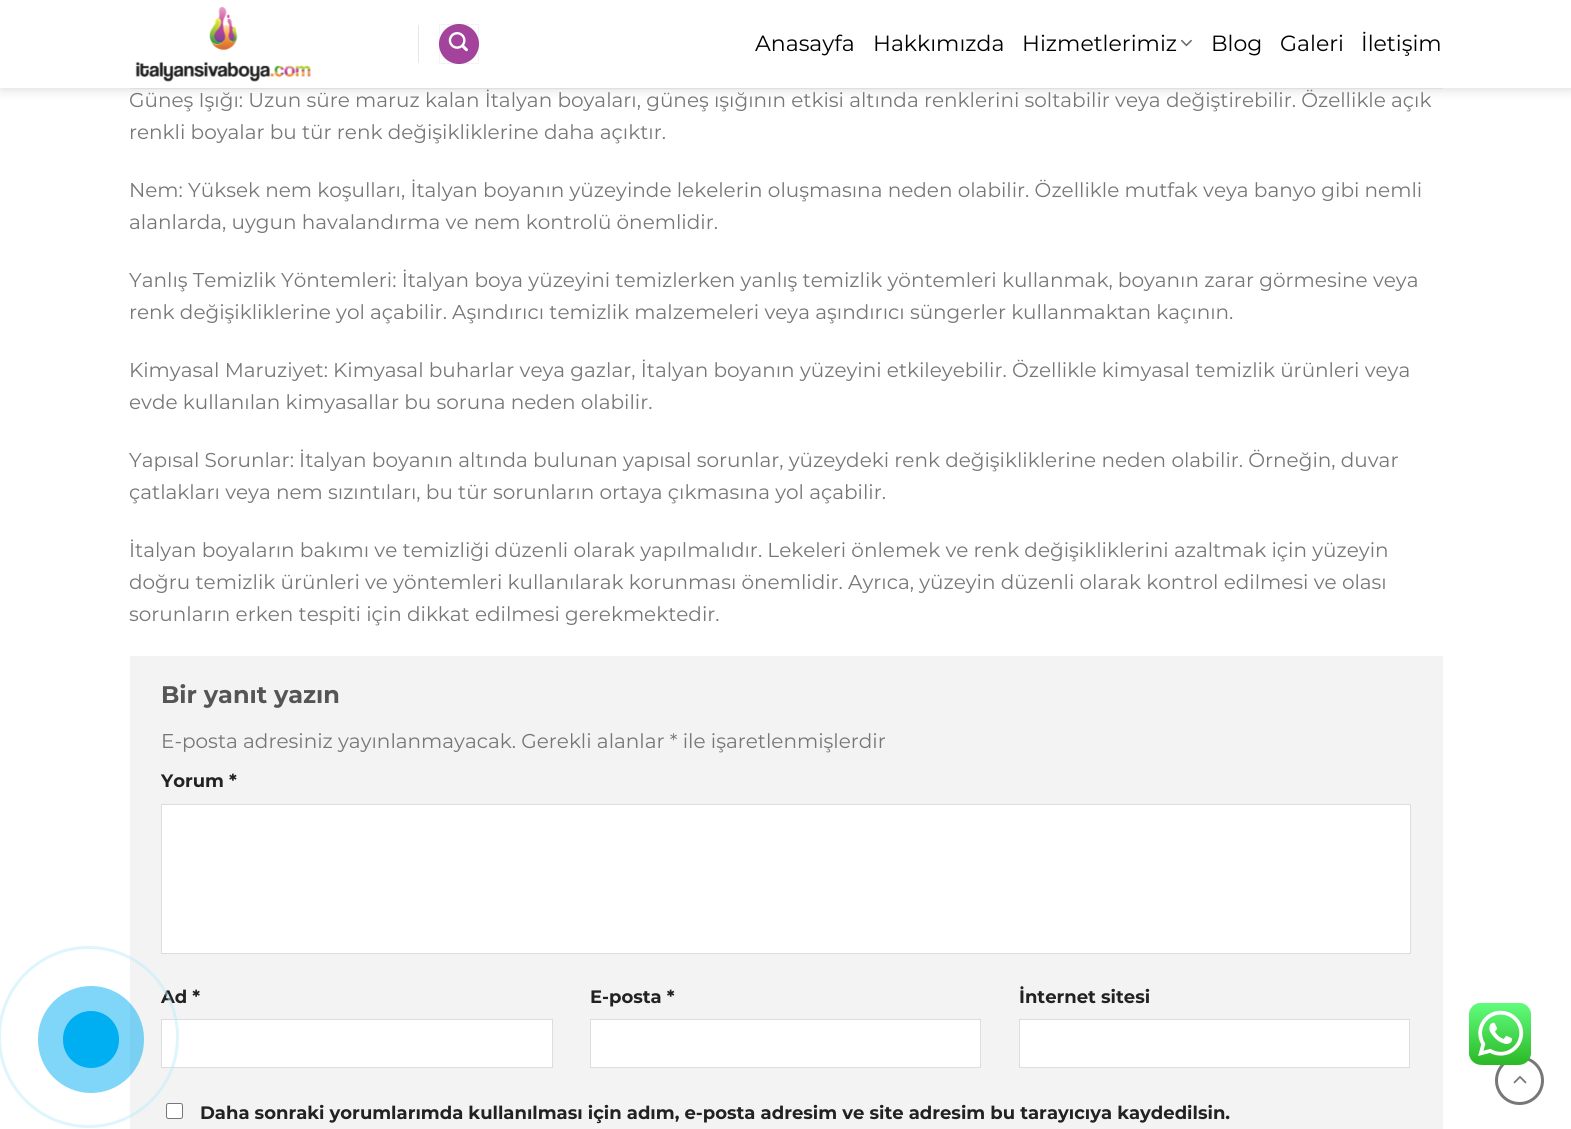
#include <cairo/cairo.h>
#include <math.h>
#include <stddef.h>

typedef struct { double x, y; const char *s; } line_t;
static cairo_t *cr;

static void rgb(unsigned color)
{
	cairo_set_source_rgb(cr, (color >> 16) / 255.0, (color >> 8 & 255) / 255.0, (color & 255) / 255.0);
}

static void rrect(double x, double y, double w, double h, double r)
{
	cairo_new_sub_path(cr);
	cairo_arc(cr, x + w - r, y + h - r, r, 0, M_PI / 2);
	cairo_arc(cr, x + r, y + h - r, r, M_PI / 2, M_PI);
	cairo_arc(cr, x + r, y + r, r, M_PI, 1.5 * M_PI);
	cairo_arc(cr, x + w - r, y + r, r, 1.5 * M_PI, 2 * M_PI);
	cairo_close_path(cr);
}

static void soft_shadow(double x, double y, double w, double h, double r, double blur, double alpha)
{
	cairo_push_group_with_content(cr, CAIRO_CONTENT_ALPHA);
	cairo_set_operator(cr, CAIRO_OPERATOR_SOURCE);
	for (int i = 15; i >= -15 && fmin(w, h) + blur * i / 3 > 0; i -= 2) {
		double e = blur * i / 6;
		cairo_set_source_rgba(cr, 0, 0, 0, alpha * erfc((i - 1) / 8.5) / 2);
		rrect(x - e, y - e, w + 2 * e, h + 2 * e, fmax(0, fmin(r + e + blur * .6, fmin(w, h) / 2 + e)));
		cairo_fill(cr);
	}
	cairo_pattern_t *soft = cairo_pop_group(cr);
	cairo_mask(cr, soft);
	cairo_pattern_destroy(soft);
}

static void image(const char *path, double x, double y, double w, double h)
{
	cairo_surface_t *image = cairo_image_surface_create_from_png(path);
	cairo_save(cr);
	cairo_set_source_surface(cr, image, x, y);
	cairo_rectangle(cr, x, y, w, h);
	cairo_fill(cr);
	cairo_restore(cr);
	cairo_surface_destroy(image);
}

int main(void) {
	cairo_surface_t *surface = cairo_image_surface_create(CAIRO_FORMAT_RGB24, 1571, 1129);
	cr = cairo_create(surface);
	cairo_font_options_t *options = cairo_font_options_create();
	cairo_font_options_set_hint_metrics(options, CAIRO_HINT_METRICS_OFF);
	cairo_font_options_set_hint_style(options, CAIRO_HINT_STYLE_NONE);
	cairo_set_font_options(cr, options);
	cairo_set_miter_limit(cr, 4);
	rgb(0xffffff);
	cairo_paint(cr);
	rgb(0x000000);
	soft_shadow(1, 1, 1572, 88, 0, 6, 0.15);
	rgb(0xffffff);
	cairo_rectangle(cr, 0, 0, 1571, 88);
	cairo_fill(cr);
	image("img/1.png", 135, 7, 176, 75);
	rgb(0xe6e6e6);
	cairo_rectangle(cr, 418, 25, 1, 38);
	cairo_fill(cr);
	rgb(0xa3439c);
	cairo_arc(cr, 459, 44, 20, 0, 2 * M_PI);
	cairo_fill(cr);
	cairo_rectangle(cr, 439.5, 24.5, 39, 39);
	cairo_set_source_rgba(cr, 0, 0, 0, 0.05);
	cairo_set_line_width(cr, 1);
	cairo_stroke(cr);
	image("img/2.png", 448, 32, 20, 20);
	image("img/3.png", 1180, 39, 12, 8);
	rgb(0xdfdfdf);
	cairo_rectangle(cr, 130, 88, 1313, 1);
	cairo_fill(cr);
	rgb(0xf3f3f3);
	cairo_rectangle(cr, 130, 656, 1313, 473);
	cairo_fill(cr);
	rgb(0xffffff);
	cairo_rectangle(cr, 161.5, 804.5, 1249, 149);
	cairo_fill_preserve(cr);
	rgb(0xdddddd);
	cairo_stroke(cr);
	rgb(0xffffff);
	cairo_rectangle(cr, 161.5, 1019.5, 391, 48);
	cairo_fill_preserve(cr);
	rgb(0xdddddd);
	cairo_stroke(cr);
	rgb(0xffffff);
	cairo_rectangle(cr, 590.5, 1019.5, 390, 48);
	cairo_fill_preserve(cr);
	rgb(0xdddddd);
	cairo_stroke(cr);
	rgb(0xffffff);
	cairo_rectangle(cr, 1019.5, 1019.5, 390, 48);
	cairo_fill_preserve(cr);
	rgb(0xdddddd);
	cairo_stroke(cr);
	rgb(0xffffff);
	rrect(166.5, 1103.5, 16, 15, 2);
	cairo_fill_preserve(cr);
	rgb(0x767676);
	cairo_stroke(cr);
	cairo_arc(cr, 1519.5, 1080.5, 23, 0, 2 * M_PI);
	rgb(0x777777);
	cairo_set_line_width(cr, 3);
	cairo_stroke(cr);
	image("img/4.png", 1513, 1075, 14, 9);
	image("img/5.png", 1469, 1003, 62, 62);
	cairo_select_font_face(cr, "Montserrat", CAIRO_FONT_SLANT_NORMAL, CAIRO_FONT_WEIGHT_NORMAL);
	cairo_set_font_size(cr, 22);
	rgb(0x000000);
	{
		static const line_t items[] = {
			{755, 51, "Anasayfa"},
			{873, 51, "Hakkımızda"},
			{1022, 51, "Hizmetlerimiz"},
			{1211, 51, "Blog"},
			{1280, 51, "Galeri"},
			{1361, 51, "İletişim"},
		};
		for (size_t i = 0; i < sizeof items / sizeof *items; i++) {
			cairo_move_to(cr, items[i].x, items[i].y);
			cairo_show_text(cr, items[i].s);
		}
	}
	cairo_set_font_size(cr, 20);
	rgb(0x777777);
	{
		static const line_t items[] = {
			{129, 107, "Güneş Işığı: Uzun süre maruz kalan İtalyan boyaları, güneş ışığının etkisi altında renklerini soltabilir veya değiştirebilir. Özellikle açık"},
			{129, 139, "renkli boyalar bu tür renk değişikliklerine daha açıktır."},
			{129, 197, "Nem: Yüksek nem koşulları, İtalyan boyanın yüzeyinde lekelerin oluşmasına neden olabilir. Özellikle mutfak veya banyo gibi nemli"},
			{129, 229, "alanlarda, uygun havalandırma ve nem kontrolü önemlidir."},
			{129, 287, "Yanlış Temizlik Yöntemleri: İtalyan boya yüzeyini temizlerken yanlış temizlik yöntemleri kullanmak, boyanın zarar görmesine veya"},
			{129, 319, "renk değişikliklerine yol açabilir. Aşındırıcı temizlik malzemeleri veya aşındırıcı süngerler kullanmaktan kaçının."},
			{129, 377, "Kimyasal Maruziyet: Kimyasal buharlar veya gazlar, İtalyan boyanın yüzeyini etkileyebilir. Özellikle kimyasal temizlik ürünleri veya"},
			{129, 409, "evde kullanılan kimyasallar bu soruna neden olabilir."},
			{129, 467, "Yapısal Sorunlar: İtalyan boyanın altında bulunan yapısal sorunlar, yüzeydeki renk değişikliklerine neden olabilir. Örneğin, duvar"},
			{129, 499, "çatlakları veya nem sızıntıları, bu tür sorunların ortaya çıkmasına yol açabilir."},
			{129, 557, "İtalyan boyaların bakımı ve temizliği düzenli olarak yapılmalıdır. Lekeleri önlemek ve renk değişikliklerini azaltmak için yüzeyin"},
			{129, 589, "doğru temizlik ürünleri ve yöntemleri kullanılarak korunması önemlidir. Ayrıca, yüzeyin düzenli olarak kontrol edilmesi ve olası"},
			{129, 621, "sorunların erken tespiti için dikkat edilmesi gerekmektedir."},
		};
		for (size_t i = 0; i < sizeof items / sizeof *items; i++) {
			cairo_move_to(cr, items[i].x, items[i].y);
			cairo_show_text(cr, items[i].s);
		}
	}
	cairo_select_font_face(cr, "Montserrat", CAIRO_FONT_SLANT_NORMAL, CAIRO_FONT_WEIGHT_BOLD);
	cairo_set_font_size(cr, 24);
	rgb(0x555555);
	cairo_move_to(cr, 161, 703);
	cairo_show_text(cr, "Bir yanıt yazın");
	cairo_select_font_face(cr, "Montserrat", CAIRO_FONT_SLANT_NORMAL, CAIRO_FONT_WEIGHT_NORMAL);
	cairo_set_font_size(cr, 20);
	rgb(0x777777);
	cairo_move_to(cr, 161, 748);
	cairo_show_text(cr, "E-posta adresiniz yayınlanmayacak. Gerekli alanlar * ile işaretlenmişlerdir");
	cairo_select_font_face(cr, "Montserrat", CAIRO_FONT_SLANT_NORMAL, CAIRO_FONT_WEIGHT_BOLD);
	cairo_set_font_size(cr, 18);
	rgb(0x222222);
	cairo_move_to(cr, 161, 787);
	cairo_show_text(cr, "Yorum *");
	cairo_move_to(cr, 161, 1003);
	cairo_show_text(cr, "Ad *");
	rrect(-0.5, 947.5, 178, 179, 89);
	cairo_set_source_rgba(cr, 0.749, 0.922, 0.988, 0.5);
	cairo_stroke(cr);
	cairo_set_source_rgba(cr, 0, 0.686, 0.949, 0.5);
	rrect(38, 986, 106, 107, 53);
	cairo_fill(cr);
	rgb(0x00aff2);
	rrect(63, 1011, 56, 57, 28);
	cairo_fill(cr);
	rgb(0x222222);
	{
		static const line_t items[] = {
			{590, 1003, "E-posta *"},
			{1019, 1003, "İnternet sitesi"},
			{200, 1119, "Daha sonraki yorumlarımda kullanılması için adım, e-posta adresim ve site adresim bu tarayıcıya kaydedilsin."},
		};
		for (size_t i = 0; i < sizeof items / sizeof *items; i++) {
			cairo_move_to(cr, items[i].x, items[i].y);
			cairo_show_text(cr, items[i].s);
		}
	}
	cairo_surface_write_to_png(surface, "page.png");
	cairo_font_options_destroy(options);
	cairo_destroy(cr);
	cairo_surface_destroy(surface);
	return 0;
}
